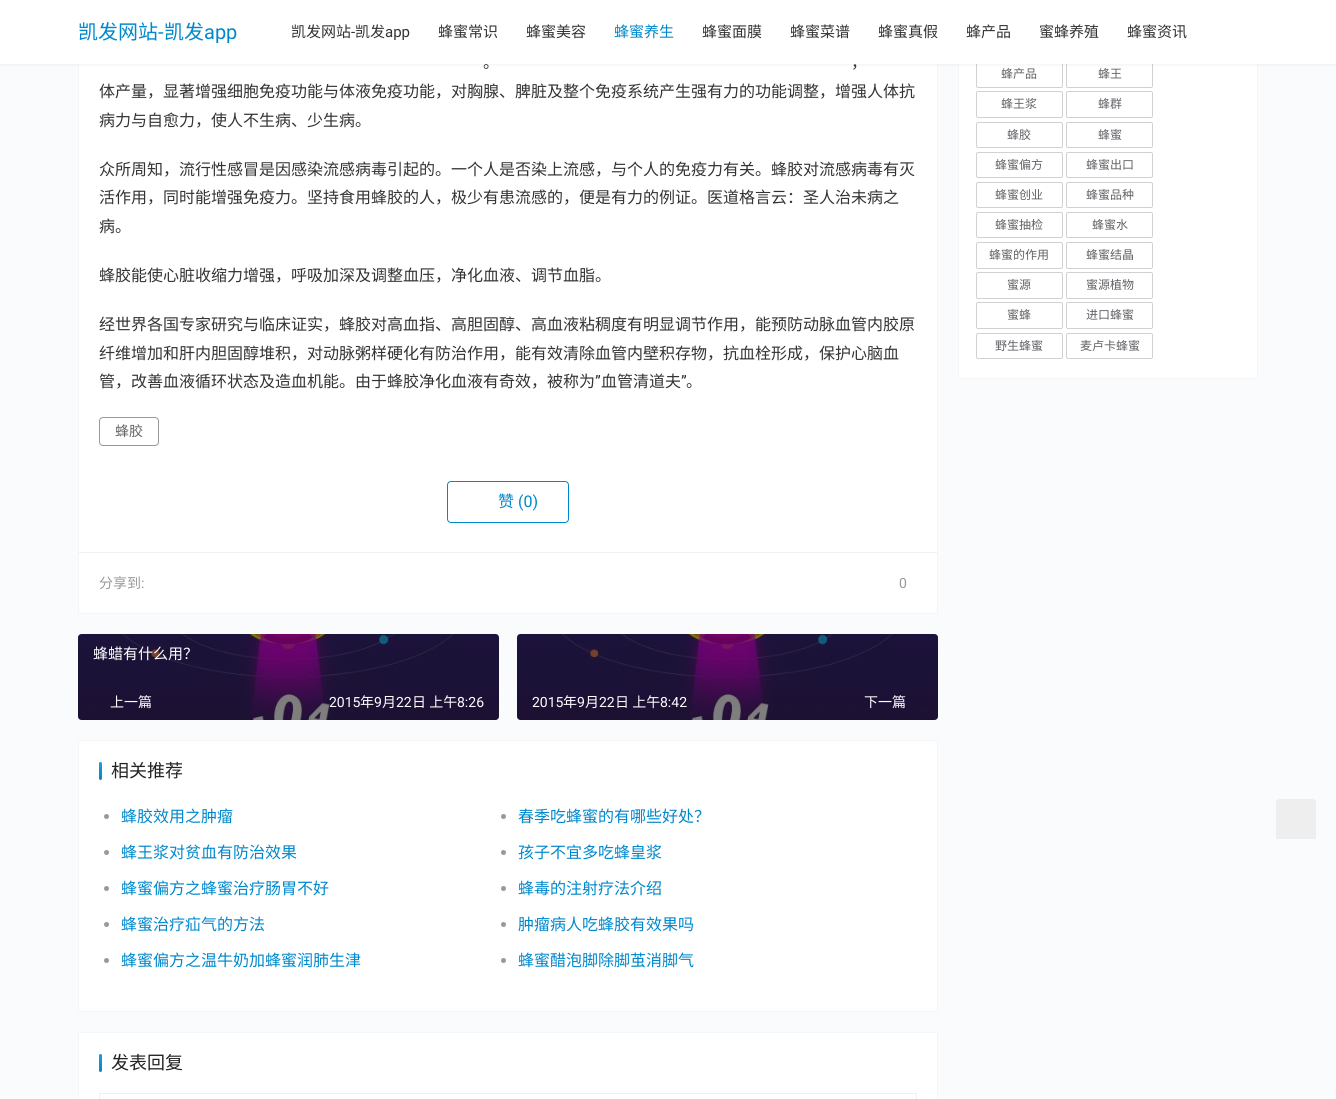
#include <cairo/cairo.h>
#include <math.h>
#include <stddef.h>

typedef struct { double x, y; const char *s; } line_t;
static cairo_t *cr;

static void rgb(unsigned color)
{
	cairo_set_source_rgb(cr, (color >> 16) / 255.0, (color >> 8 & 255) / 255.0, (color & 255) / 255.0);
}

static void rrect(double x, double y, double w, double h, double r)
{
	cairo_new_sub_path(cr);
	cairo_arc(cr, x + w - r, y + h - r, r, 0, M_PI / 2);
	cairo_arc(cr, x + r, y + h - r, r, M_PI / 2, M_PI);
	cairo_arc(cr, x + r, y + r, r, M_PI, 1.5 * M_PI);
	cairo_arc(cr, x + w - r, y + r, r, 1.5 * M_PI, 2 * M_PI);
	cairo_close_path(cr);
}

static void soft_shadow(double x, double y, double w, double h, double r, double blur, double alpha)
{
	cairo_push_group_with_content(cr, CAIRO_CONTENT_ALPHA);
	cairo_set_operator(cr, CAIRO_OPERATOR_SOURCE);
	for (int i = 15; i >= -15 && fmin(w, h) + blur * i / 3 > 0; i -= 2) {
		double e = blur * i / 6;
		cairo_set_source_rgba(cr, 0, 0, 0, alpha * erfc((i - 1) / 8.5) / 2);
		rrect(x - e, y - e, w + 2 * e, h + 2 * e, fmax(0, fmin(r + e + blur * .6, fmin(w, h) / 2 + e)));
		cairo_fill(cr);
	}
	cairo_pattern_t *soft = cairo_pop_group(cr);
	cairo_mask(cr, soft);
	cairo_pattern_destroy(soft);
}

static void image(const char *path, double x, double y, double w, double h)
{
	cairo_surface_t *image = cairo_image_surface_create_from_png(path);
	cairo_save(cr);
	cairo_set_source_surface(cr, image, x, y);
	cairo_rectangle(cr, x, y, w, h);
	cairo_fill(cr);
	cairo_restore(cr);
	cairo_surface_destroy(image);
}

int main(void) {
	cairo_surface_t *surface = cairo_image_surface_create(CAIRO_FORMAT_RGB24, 1336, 1099);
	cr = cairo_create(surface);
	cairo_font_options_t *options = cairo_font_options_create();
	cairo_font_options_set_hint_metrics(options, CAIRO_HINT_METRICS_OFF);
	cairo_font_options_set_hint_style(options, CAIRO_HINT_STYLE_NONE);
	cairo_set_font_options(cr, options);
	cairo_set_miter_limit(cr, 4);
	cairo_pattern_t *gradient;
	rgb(0xfafbfc);
	cairo_paint(cr);
	rgb(0xffffff);
	cairo_rectangle(cr, 79, 64, 858, 549);
	cairo_fill(cr);
	cairo_rectangle(cr, 78.5, -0.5, 859, 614);
	rgb(0xf5f5f5);
	cairo_set_line_width(cr, 1);
	cairo_stroke(cr);
	rgb(0xffffff);
	cairo_rectangle(cr, 959, 64, 298, 314);
	cairo_fill(cr);
	cairo_rectangle(cr, 958.5, -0.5, 299, 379);
	rgb(0xf5f5f5);
	cairo_stroke(cr);
	rrect(976.5, 61.5, 86, 26, 1.5);
	rgb(0xd1d1d1);
	cairo_stroke(cr);
	rrect(1066.5, 61.5, 86, 26, 1.5);
	cairo_stroke(cr);
	rgb(0x000000);
	soft_shadow(-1, -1, 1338, 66, 0, 1.5, 0.05);
	rgb(0xffffff);
	cairo_rectangle(cr, 0, 0, 1336, 64);
	cairo_fill(cr);
	rrect(99.5, 417.5, 59, 28, 3.5);
	rgb(0x999999);
	cairo_stroke(cr);
	rrect(447.5, 481.5, 121, 41, 3.5);
	rgb(0x0088cc);
	cairo_stroke(cr);
	rgb(0xf2f2f2);
	cairo_rectangle(cr, 79, 552, 858, 1);
	cairo_fill(cr);
	image("img/1.png", 78, 634, 421, 86);
	cairo_set_source_rgba(cr, 0, 0, 0, 0.5);
	rrect(78, 634, 421, 86, 4);
	cairo_fill(cr);
	image("img/2.png", 517, 634, 421, 86);
	rrect(517, 634, 421, 86, 4);
	cairo_fill(cr);
	rgb(0xffffff);
	cairo_rectangle(cr, 78.5, 740.5, 859, 271);
	cairo_fill_preserve(cr);
	rgb(0xf5f5f5);
	cairo_stroke(cr);
	rgb(0x0088cc);
	rrect(99, 762, 3, 18, 1.5);
	cairo_fill(cr);
	gradient = cairo_pattern_create_linear(101, 762, 101, 780);
	cairo_pattern_add_color_stop_rgba(gradient, 0, 1, 1, 1, 0.15);
	cairo_pattern_add_color_stop_rgba(gradient, 1, 1, 1, 1, 0);
	cairo_set_source(cr, gradient);
	cairo_pattern_destroy(gradient);
	rrect(99, 762, 3, 18, 1.5);
	cairo_fill(cr);
	rgb(0x999999);
	cairo_arc(cr, 106.5, 816.5, 2.5, 0, 2 * M_PI);
	cairo_fill(cr);
	cairo_arc(cr, 503.5, 816.5, 2.5, 0, 2 * M_PI);
	cairo_fill(cr);
	cairo_arc(cr, 106.5, 852.5, 2.5, 0, 2 * M_PI);
	cairo_fill(cr);
	cairo_arc(cr, 503.5, 852.5, 2.5, 0, 2 * M_PI);
	cairo_fill(cr);
	cairo_arc(cr, 106.5, 888.5, 2.5, 0, 2 * M_PI);
	cairo_fill(cr);
	cairo_arc(cr, 503.5, 888.5, 2.5, 0, 2 * M_PI);
	cairo_fill(cr);
	cairo_arc(cr, 106.5, 924.5, 2.5, 0, 2 * M_PI);
	cairo_fill(cr);
	cairo_arc(cr, 503.5, 924.5, 2.5, 0, 2 * M_PI);
	cairo_fill(cr);
	cairo_arc(cr, 106.5, 960.5, 2.5, 0, 2 * M_PI);
	cairo_fill(cr);
	cairo_arc(cr, 503.5, 960.5, 2.5, 0, 2 * M_PI);
	cairo_fill(cr);
	rgb(0xffffff);
	cairo_rectangle(cr, 78.5, 1032.5, 859, 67);
	cairo_fill_preserve(cr);
	rgb(0xf5f5f5);
	cairo_stroke(cr);
	rgb(0x0088cc);
	rrect(99, 1054, 3, 18, 1.5);
	cairo_fill(cr);
	gradient = cairo_pattern_create_linear(101, 1054, 101, 1072);
	cairo_pattern_add_color_stop_rgba(gradient, 0, 1, 1, 1, 0.15);
	cairo_pattern_add_color_stop_rgba(gradient, 1, 1, 1, 1, 0);
	cairo_set_source(cr, gradient);
	cairo_pattern_destroy(gradient);
	rrect(99, 1054, 3, 18, 1.5);
	cairo_fill(cr);
	cairo_rectangle(cr, 99.5, 1093.5, 817, 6);
	rgb(0xefefef);
	cairo_stroke(cr);
	rrect(976.5, 91.5, 86, 26, 1.5);
	rgb(0xd1d1d1);
	cairo_stroke(cr);
	rrect(1066.5, 91.5, 86, 26, 1.5);
	cairo_stroke(cr);
	rrect(976.5, 122.5, 86, 25, 1.5);
	cairo_stroke(cr);
	rrect(1066.5, 122.5, 86, 25, 1.5);
	cairo_stroke(cr);
	rrect(976.5, 152.5, 86, 25, 1.5);
	cairo_stroke(cr);
	rrect(1066.5, 152.5, 86, 25, 1.5);
	cairo_stroke(cr);
	rrect(976.5, 182.5, 86, 25, 1.5);
	cairo_stroke(cr);
	rrect(1066.5, 182.5, 86, 25, 1.5);
	cairo_stroke(cr);
	rrect(976.5, 212.5, 86, 25, 1.5);
	cairo_stroke(cr);
	rrect(1066.5, 212.5, 86, 25, 1.5);
	cairo_stroke(cr);
	rrect(976.5, 242.5, 86, 26, 1.5);
	cairo_stroke(cr);
	rrect(1066.5, 242.5, 86, 26, 1.5);
	cairo_stroke(cr);
	rrect(976.5, 272.5, 86, 26, 1.5);
	cairo_stroke(cr);
	rrect(1066.5, 272.5, 86, 26, 1.5);
	cairo_stroke(cr);
	rrect(976.5, 302.5, 86, 26, 1.5);
	cairo_stroke(cr);
	rrect(1066.5, 302.5, 86, 26, 1.5);
	cairo_stroke(cr);
	rrect(976.5, 333.5, 86, 25, 1.5);
	cairo_stroke(cr);
	rrect(1066.5, 333.5, 86, 25, 1.5);
	cairo_stroke(cr);
	rgb(0xeeeeee);
	cairo_new_path(cr);
	cairo_move_to(cr, 1279, 799);
	cairo_line_to(cr, 1313, 799);
	cairo_curve_to(cr, 1314.5, 799, 1316, 800.5, 1316, 802);
	cairo_line_to(cr, 1316, 839);
	cairo_line_to(cr, 1276, 839);
	cairo_line_to(cr, 1276, 802);
	cairo_curve_to(cr, 1276, 800.5, 1277.5, 799, 1279, 799);
	cairo_close_path(cr);
	cairo_fill(cr);
	cairo_select_font_face(cr, "Noto Sans CJK SC", CAIRO_FONT_SLANT_NORMAL, CAIRO_FONT_WEIGHT_NORMAL);
	cairo_set_font_size(cr, 20);
	rgb(0x0088cc);
	cairo_move_to(cr, 78, 39);
	cairo_show_text(cr, "凯发网站");
	cairo_select_font_face(cr, "Roboto", CAIRO_FONT_SLANT_NORMAL, CAIRO_FONT_WEIGHT_NORMAL);
	cairo_move_to(cr, 158, 39);
	cairo_show_text(cr, "-");
	cairo_select_font_face(cr, "Noto Sans CJK SC", CAIRO_FONT_SLANT_NORMAL, CAIRO_FONT_WEIGHT_NORMAL);
	cairo_move_to(cr, 164, 39);
	cairo_show_text(cr, "凯发");
	cairo_select_font_face(cr, "Roboto", CAIRO_FONT_SLANT_NORMAL, CAIRO_FONT_WEIGHT_NORMAL);
	cairo_move_to(cr, 204, 39);
	cairo_show_text(cr, "app");
	cairo_select_font_face(cr, "Noto Sans CJK SC", CAIRO_FONT_SLANT_NORMAL, CAIRO_FONT_WEIGHT_NORMAL);
	cairo_set_font_size(cr, 15);
	rgb(0x333333);
	cairo_move_to(cr, 291, 37);
	cairo_show_text(cr, "凯发网站");
	cairo_select_font_face(cr, "Roboto", CAIRO_FONT_SLANT_NORMAL, CAIRO_FONT_WEIGHT_NORMAL);
	cairo_move_to(cr, 351, 37);
	cairo_show_text(cr, "-");
	cairo_select_font_face(cr, "Noto Sans CJK SC", CAIRO_FONT_SLANT_NORMAL, CAIRO_FONT_WEIGHT_NORMAL);
	cairo_move_to(cr, 355, 37);
	cairo_show_text(cr, "凯发");
	cairo_select_font_face(cr, "Roboto", CAIRO_FONT_SLANT_NORMAL, CAIRO_FONT_WEIGHT_NORMAL);
	cairo_move_to(cr, 385, 37);
	cairo_show_text(cr, "app");
	cairo_select_font_face(cr, "Noto Sans CJK SC", CAIRO_FONT_SLANT_NORMAL, CAIRO_FONT_WEIGHT_NORMAL);
	cairo_move_to(cr, 438, 37);
	cairo_show_text(cr, "蜂蜜常识");
	cairo_move_to(cr, 526, 37);
	cairo_show_text(cr, "蜂蜜美容");
	rgb(0x0088cc);
	cairo_move_to(cr, 614, 37);
	cairo_show_text(cr, "蜂蜜养生");
	rgb(0x333333);
	{
		static const line_t items[] = {
			{702, 37, "蜂蜜面膜"},
			{790, 37, "蜂蜜菜谱"},
			{878, 37, "蜂蜜真假"},
			{966, 37, "蜂产品"},
			{1039, 37, "蜜蜂养殖"},
			{1127, 37, "蜂蜜资讯"},
		};
		for (size_t i = 0; i < sizeof items / sizeof *items; i++) {
			cairo_move_to(cr, items[i].x, items[i].y);
			cairo_show_text(cr, items[i].s);
		}
	}
	cairo_set_font_size(cr, 16);
	{
		static const line_t items[] = {
			{483, 68, "。"},
			{851, 68, "，"},
			{99, 97, "体产量，显著增强细胞免疫功能与体液免疫功能，对胸腺、脾脏及整个免疫系统产生强有力的功能调整，增强人体抗"},
			{99, 126, "病力与自愈力，使人不生病、少生病。"},
			{99, 175, "众所周知，流行性感冒是因感染流感病毒引起的。一个人是否染上流感，与个人的免疫力有关。蜂胶对流感病毒有灭"},
			{99, 203, "活作用，同时能增强免疫力。坚持食用蜂胶的人，极少有患流感的，便是有力的例证。医道格言云：圣人治未病之"},
			{99, 232, "病。"},
			{99, 281, "蜂胶能使心脏收缩力增强，呼吸加深及调整血压，净化血液、调节血脂。"},
			{99, 330, "经世界各国专家研究与临床证实，蜂胶对高血指、高胆固醇、高血液粘稠度有明显调节作用，能预防动脉血管内胶原"},
			{99, 359, "纤维增加和肝内胆固醇堆积，对动脉粥样硬化有防治作用，能有效清除血管内壁积存物，抗血栓形成，保护心脑血"},
			{99, 387, "管，改善血液循环状态及造血机能。由于蜂胶净化血液有奇效，被称为"},
		};
		for (size_t i = 0; i < sizeof items / sizeof *items; i++) {
			cairo_move_to(cr, items[i].x, items[i].y);
			cairo_show_text(cr, items[i].s);
		}
	}
	cairo_select_font_face(cr, "Roboto", CAIRO_FONT_SLANT_NORMAL, CAIRO_FONT_WEIGHT_NORMAL);
	cairo_move_to(cr, 595, 387);
	cairo_show_text(cr, "”");
	cairo_select_font_face(cr, "Noto Sans CJK SC", CAIRO_FONT_SLANT_NORMAL, CAIRO_FONT_WEIGHT_NORMAL);
	cairo_move_to(cr, 601, 387);
	cairo_show_text(cr, "血管清道夫");
	cairo_select_font_face(cr, "Roboto", CAIRO_FONT_SLANT_NORMAL, CAIRO_FONT_WEIGHT_NORMAL);
	cairo_move_to(cr, 681, 387);
	cairo_show_text(cr, "”");
	cairo_select_font_face(cr, "Noto Sans CJK SC", CAIRO_FONT_SLANT_NORMAL, CAIRO_FONT_WEIGHT_NORMAL);
	cairo_move_to(cr, 686, 387);
	cairo_show_text(cr, "。");
	cairo_set_font_size(cr, 14);
	rgb(0x666666);
	cairo_move_to(cr, 115, 436);
	cairo_show_text(cr, "蜂胶");
	cairo_set_font_size(cr, 16);
	rgb(0x0088cc);
	cairo_move_to(cr, 498, 507);
	cairo_show_text(cr, "赞");
	cairo_select_font_face(cr, "Roboto", CAIRO_FONT_SLANT_NORMAL, CAIRO_FONT_WEIGHT_NORMAL);
	cairo_move_to(cr, 518, 507);
	cairo_show_text(cr, "(0)");
	cairo_select_font_face(cr, "Noto Sans CJK SC", CAIRO_FONT_SLANT_NORMAL, CAIRO_FONT_WEIGHT_NORMAL);
	cairo_set_font_size(cr, 14);
	rgb(0x999999);
	cairo_move_to(cr, 99, 588);
	cairo_show_text(cr, "分享到");
	cairo_select_font_face(cr, "Roboto", CAIRO_FONT_SLANT_NORMAL, CAIRO_FONT_WEIGHT_NORMAL);
	cairo_move_to(cr, 141, 588);
	cairo_show_text(cr, ":");
	cairo_move_to(cr, 899, 588);
	cairo_show_text(cr, "0");
	cairo_select_font_face(cr, "Noto Sans CJK SC", CAIRO_FONT_SLANT_NORMAL, CAIRO_FONT_WEIGHT_NORMAL);
	cairo_set_font_size(cr, 15);
	rgb(0xffffff);
	cairo_move_to(cr, 93, 659);
	cairo_show_text(cr, "蜂蜡有什么用？");
	cairo_set_font_size(cr, 14);
	cairo_move_to(cr, 110, 707);
	cairo_show_text(cr, "上一篇");
	cairo_select_font_face(cr, "Roboto", CAIRO_FONT_SLANT_NORMAL, CAIRO_FONT_WEIGHT_NORMAL);
	cairo_move_to(cr, 329, 707);
	cairo_show_text(cr, "2015");
	cairo_select_font_face(cr, "Noto Sans CJK SC", CAIRO_FONT_SLANT_NORMAL, CAIRO_FONT_WEIGHT_NORMAL);
	cairo_move_to(cr, 360, 707);
	cairo_show_text(cr, "年");
	cairo_select_font_face(cr, "Roboto", CAIRO_FONT_SLANT_NORMAL, CAIRO_FONT_WEIGHT_NORMAL);
	cairo_move_to(cr, 374, 707);
	cairo_show_text(cr, "9");
	cairo_select_font_face(cr, "Noto Sans CJK SC", CAIRO_FONT_SLANT_NORMAL, CAIRO_FONT_WEIGHT_NORMAL);
	cairo_move_to(cr, 382, 707);
	cairo_show_text(cr, "月");
	cairo_select_font_face(cr, "Roboto", CAIRO_FONT_SLANT_NORMAL, CAIRO_FONT_WEIGHT_NORMAL);
	cairo_move_to(cr, 396, 707);
	cairo_show_text(cr, "22");
	cairo_select_font_face(cr, "Noto Sans CJK SC", CAIRO_FONT_SLANT_NORMAL, CAIRO_FONT_WEIGHT_NORMAL);
	cairo_move_to(cr, 412, 707);
	cairo_show_text(cr, "日 上午");
	cairo_select_font_face(cr, "Roboto", CAIRO_FONT_SLANT_NORMAL, CAIRO_FONT_WEIGHT_NORMAL);
	cairo_move_to(cr, 457, 707);
	cairo_show_text(cr, "8:26");
	cairo_move_to(cr, 532, 707);
	cairo_show_text(cr, "2015");
	cairo_select_font_face(cr, "Noto Sans CJK SC", CAIRO_FONT_SLANT_NORMAL, CAIRO_FONT_WEIGHT_NORMAL);
	cairo_move_to(cr, 563, 707);
	cairo_show_text(cr, "年");
	cairo_select_font_face(cr, "Roboto", CAIRO_FONT_SLANT_NORMAL, CAIRO_FONT_WEIGHT_NORMAL);
	cairo_move_to(cr, 577, 707);
	cairo_show_text(cr, "9");
	cairo_select_font_face(cr, "Noto Sans CJK SC", CAIRO_FONT_SLANT_NORMAL, CAIRO_FONT_WEIGHT_NORMAL);
	cairo_move_to(cr, 585, 707);
	cairo_show_text(cr, "月");
	cairo_select_font_face(cr, "Roboto", CAIRO_FONT_SLANT_NORMAL, CAIRO_FONT_WEIGHT_NORMAL);
	cairo_move_to(cr, 599, 707);
	cairo_show_text(cr, "22");
	cairo_select_font_face(cr, "Noto Sans CJK SC", CAIRO_FONT_SLANT_NORMAL, CAIRO_FONT_WEIGHT_NORMAL);
	cairo_move_to(cr, 615, 707);
	cairo_show_text(cr, "日 上午");
	cairo_select_font_face(cr, "Roboto", CAIRO_FONT_SLANT_NORMAL, CAIRO_FONT_WEIGHT_NORMAL);
	cairo_move_to(cr, 660, 707);
	cairo_show_text(cr, "8:42");
	cairo_select_font_face(cr, "Noto Sans CJK SC", CAIRO_FONT_SLANT_NORMAL, CAIRO_FONT_WEIGHT_NORMAL);
	cairo_move_to(cr, 864, 707);
	cairo_show_text(cr, "下一篇");
	cairo_set_font_size(cr, 18);
	rgb(0x232323);
	cairo_move_to(cr, 111, 777);
	cairo_show_text(cr, "相关推荐");
	cairo_set_font_size(cr, 16);
	rgb(0x0088cc);
	{
		static const line_t items[] = {
			{121, 822, "蜂胶效用之肿瘤"},
			{518, 822, "春季吃蜂蜜的有哪些好处？"},
			{121, 858, "蜂王浆对贫血有防治效果"},
			{518, 858, "孩子不宜多吃蜂皇浆"},
			{121, 894, "蜂蜜偏方之蜂蜜治疗肠胃不好"},
			{518, 894, "蜂毒的注射疗法介绍"},
			{121, 930, "蜂蜜治疗疝气的方法"},
			{518, 930, "肿瘤病人吃蜂胶有效果吗"},
			{121, 966, "蜂蜜偏方之温牛奶加蜂蜜润肺生津"},
			{518, 966, "蜂蜜醋泡脚除脚茧消脚气"},
		};
		for (size_t i = 0; i < sizeof items / sizeof *items; i++) {
			cairo_move_to(cr, items[i].x, items[i].y);
			cairo_show_text(cr, items[i].s);
		}
	}
	cairo_set_font_size(cr, 18);
	rgb(0x232323);
	cairo_move_to(cr, 111, 1069);
	cairo_show_text(cr, "发表回复");
	cairo_set_font_size(cr, 12);
	rgb(0x606266);
	{
		static const line_t items[] = {
			{1001, 78, "蜂产品"},
			{1098, 78, "蜂王"},
			{1001, 108, "蜂王浆"},
			{1098, 108, "蜂群"},
			{1007, 139, "蜂胶"},
			{1098, 139, "蜂蜜"},
			{995, 169, "蜂蜜偏方"},
			{1086, 169, "蜂蜜出口"},
			{995, 199, "蜂蜜创业"},
			{1086, 199, "蜂蜜品种"},
			{995, 229, "蜂蜜抽检"},
			{1092, 229, "蜂蜜水"},
			{989, 259, "蜂蜜的作用"},
			{1086, 259, "蜂蜜结晶"},
			{1007, 289, "蜜源"},
			{1086, 289, "蜜源植物"},
			{1007, 319, "蜜蜂"},
			{1086, 319, "进口蜂蜜"},
			{995, 350, "野生蜂蜜"},
			{1080, 350, "麦卢卡蜂蜜"},
		};
		for (size_t i = 0; i < sizeof items / sizeof *items; i++) {
			cairo_move_to(cr, items[i].x, items[i].y);
			cairo_show_text(cr, items[i].s);
		}
	}
	cairo_surface_write_to_png(surface, "page.png");
	cairo_font_options_destroy(options);
	cairo_destroy(cr);
	cairo_surface_destroy(surface);
	return 0;
}
